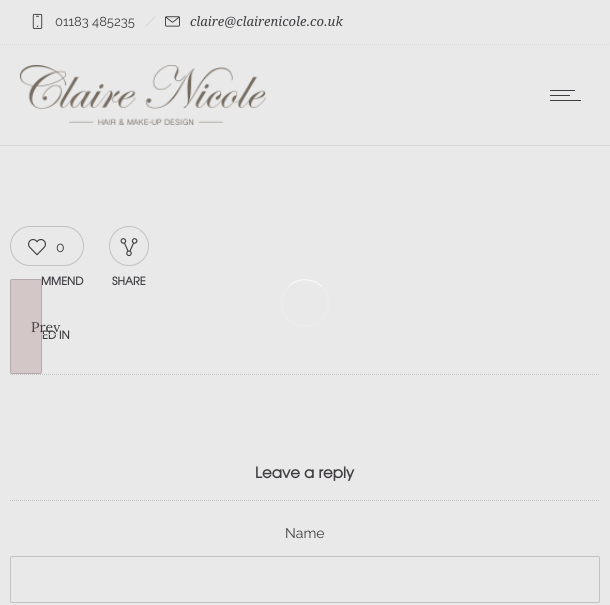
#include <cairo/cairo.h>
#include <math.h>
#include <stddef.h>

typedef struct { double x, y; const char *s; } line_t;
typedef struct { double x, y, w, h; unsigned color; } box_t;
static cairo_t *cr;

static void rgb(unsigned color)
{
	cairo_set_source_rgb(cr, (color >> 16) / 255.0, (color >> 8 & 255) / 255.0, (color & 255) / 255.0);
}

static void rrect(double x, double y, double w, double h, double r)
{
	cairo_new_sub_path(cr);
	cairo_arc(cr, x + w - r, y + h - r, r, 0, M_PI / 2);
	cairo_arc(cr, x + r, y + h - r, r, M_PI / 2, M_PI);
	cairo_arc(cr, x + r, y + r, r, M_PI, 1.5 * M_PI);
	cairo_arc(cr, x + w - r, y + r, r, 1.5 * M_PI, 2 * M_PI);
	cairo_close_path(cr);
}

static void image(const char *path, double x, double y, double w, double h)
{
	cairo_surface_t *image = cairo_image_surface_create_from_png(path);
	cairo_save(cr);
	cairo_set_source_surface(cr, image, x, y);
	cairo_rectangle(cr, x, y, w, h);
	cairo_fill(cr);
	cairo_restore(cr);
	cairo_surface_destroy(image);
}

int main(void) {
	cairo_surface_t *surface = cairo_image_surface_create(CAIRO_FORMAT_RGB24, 610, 605);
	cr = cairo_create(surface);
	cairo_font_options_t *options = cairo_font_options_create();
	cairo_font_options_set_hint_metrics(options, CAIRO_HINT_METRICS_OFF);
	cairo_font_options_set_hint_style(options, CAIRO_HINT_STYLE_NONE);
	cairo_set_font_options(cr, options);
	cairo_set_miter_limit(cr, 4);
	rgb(0xe9e9e9);
	cairo_paint(cr);
	rgb(0xd8d7d8);
	cairo_rectangle(cr, 0, 145, 610, 1);
	cairo_fill(cr);
	cairo_new_path(cr);
	cairo_move_to(cr, 0, 44.5);
	cairo_line_to(cr, 610, 44.5);
	cairo_set_line_width(cr, 1);
	cairo_set_dash(cr, (double[]){1, 1}, 2, 0);
	cairo_stroke(cr);
	image("img/1.png", 32, 13, 11, 16);
	cairo_new_path(cr);
	cairo_move_to(cr, 155, 16);
	cairo_line_to(cr, 155.5, 17);
	cairo_line_to(cr, 145.5, 27);
	cairo_line_to(cr, 145, 26);
	cairo_close_path(cr);
	cairo_fill(cr);
	image("img/2.png", 165, 16, 15, 11);
	image("img/3.png", 20, 65, 246, 60);
	{
		static const box_t items[] = {
			{550, 90, 25, 1, 0x3f3d41},
			{550, 95, 20, 1, 0x3f3d41},
			{550, 100, 31, 1, 0x3f3d41},
		};
		for (size_t i = 0; i < sizeof items / sizeof *items; i++) {
			rgb(items[i].color);
			cairo_rectangle(cr, items[i].x, items[i].y, items[i].w, items[i].h);
			cairo_fill(cr);
		}
	}
	cairo_new_path(cr);
	cairo_move_to(cr, 10, 374.5);
	cairo_line_to(cr, 600, 374.5);
	rgb(0xc1c1c1);
	cairo_stroke(cr);
	rrect(10.5, 226.5, 73, 39, 19.5);
	cairo_set_dash(cr, NULL, 0, 0);
	cairo_stroke(cr);
	image("img/4.png", 28, 239, 18, 17);
	cairo_arc(cr, 129, 246, 19.5, 0, 2 * M_PI);
	cairo_stroke(cr);
	image("img/5.png", 120, 238, 18, 19);
	cairo_new_path(cr);
	cairo_move_to(cr, 10, 500.5);
	cairo_line_to(cr, 600, 500.5);
	cairo_set_dash(cr, (double[]){1, 1}, 2, 0);
	cairo_stroke(cr);
	rrect(10.5, 556.5, 589, 46, 1.5);
	cairo_set_dash(cr, NULL, 0, 0);
	cairo_stroke(cr);
	cairo_new_path(cr);
	cairo_move_to(cr, 288.5, 286.5);
	cairo_curve_to(cr, 297.5, 277.5, 312.5, 277.5, 321.5, 286.5);
	rgb(0xfcfbfb);
	cairo_stroke(cr);
	cairo_new_path(cr);
	cairo_move_to(cr, 321.5, 286.5);
	cairo_curve_to(cr, 326, 291, 328.5, 297, 328.5, 303);
	cairo_curve_to(cr, 328.5, 331, 287.5, 335, 282, 307.5);
	cairo_curve_to(cr, 280.5, 300, 283, 292, 288.5, 286.5);
	rgb(0xededed);
	cairo_stroke(cr);
	cairo_select_font_face(cr, "Raleway", CAIRO_FONT_SLANT_NORMAL, CAIRO_FONT_WEIGHT_NORMAL);
	cairo_set_font_size(cr, 13);
	rgb(0x3f3d41);
	cairo_move_to(cr, 55, 26);
	cairo_show_text(cr, "01183 485235");
	cairo_select_font_face(cr, "Droid Serif", CAIRO_FONT_SLANT_ITALIC, CAIRO_FONT_WEIGHT_NORMAL);
	cairo_move_to(cr, 190, 26);
	cairo_show_text(cr, "claire@clairenicole.co.uk");
	cairo_select_font_face(cr, "Raleway", CAIRO_FONT_SLANT_NORMAL, CAIRO_FONT_WEIGHT_NORMAL);
	cairo_set_font_size(cr, 14);
	cairo_move_to(cr, 56, 252);
	cairo_show_text(cr, "0");
	cairo_select_font_face(cr, "TeX Gyre Adventor", CAIRO_FONT_SLANT_NORMAL, CAIRO_FONT_WEIGHT_BOLD);
	cairo_set_font_size(cr, 11);
	{
		static const line_t items[] = {
			{41, 285, "MMEND"},
			{112, 285, "SHARE"},
			{42, 339, "ED IN"},
		};
		for (size_t i = 0; i < sizeof items / sizeof *items; i++) {
			cairo_move_to(cr, items[i].x, items[i].y);
			cairo_show_text(cr, items[i].s);
		}
	}
	cairo_set_font_size(cr, 15);
	cairo_move_to(cr, 255, 478);
	cairo_show_text(cr, "Leave a reply");
	cairo_select_font_face(cr, "Raleway", CAIRO_FONT_SLANT_NORMAL, CAIRO_FONT_WEIGHT_NORMAL);
	cairo_set_font_size(cr, 14);
	cairo_move_to(cr, 285, 538);
	cairo_show_text(cr, "Name");
	rgb(0xd3c8c7);
	rrect(10, 279, 32, 95, 2);
	cairo_fill(cr);
	rrect(10.5, 279.5, 31, 94, 1.5);
	cairo_set_source_rgba(cr, 0.49, 0.49, 0.49, 0.4);
	cairo_stroke(cr);
	cairo_select_font_face(cr, "Lora", CAIRO_FONT_SLANT_NORMAL, CAIRO_FONT_WEIGHT_NORMAL);
	rgb(0x3b3b3b);
	cairo_move_to(cr, 31, 332);
	cairo_show_text(cr, "Prev");
	cairo_new_path(cr);
	cairo_move_to(cr, 31, 334.5);
	cairo_line_to(cr, 60, 334.5);
	rgb(0xd3c8c7);
	cairo_set_dash(cr, (double[]){1, 1}, 2, 0);
	cairo_stroke(cr);
	cairo_surface_write_to_png(surface, "page.png");
	cairo_font_options_destroy(options);
	cairo_destroy(cr);
	cairo_surface_destroy(surface);
	return 0;
}
